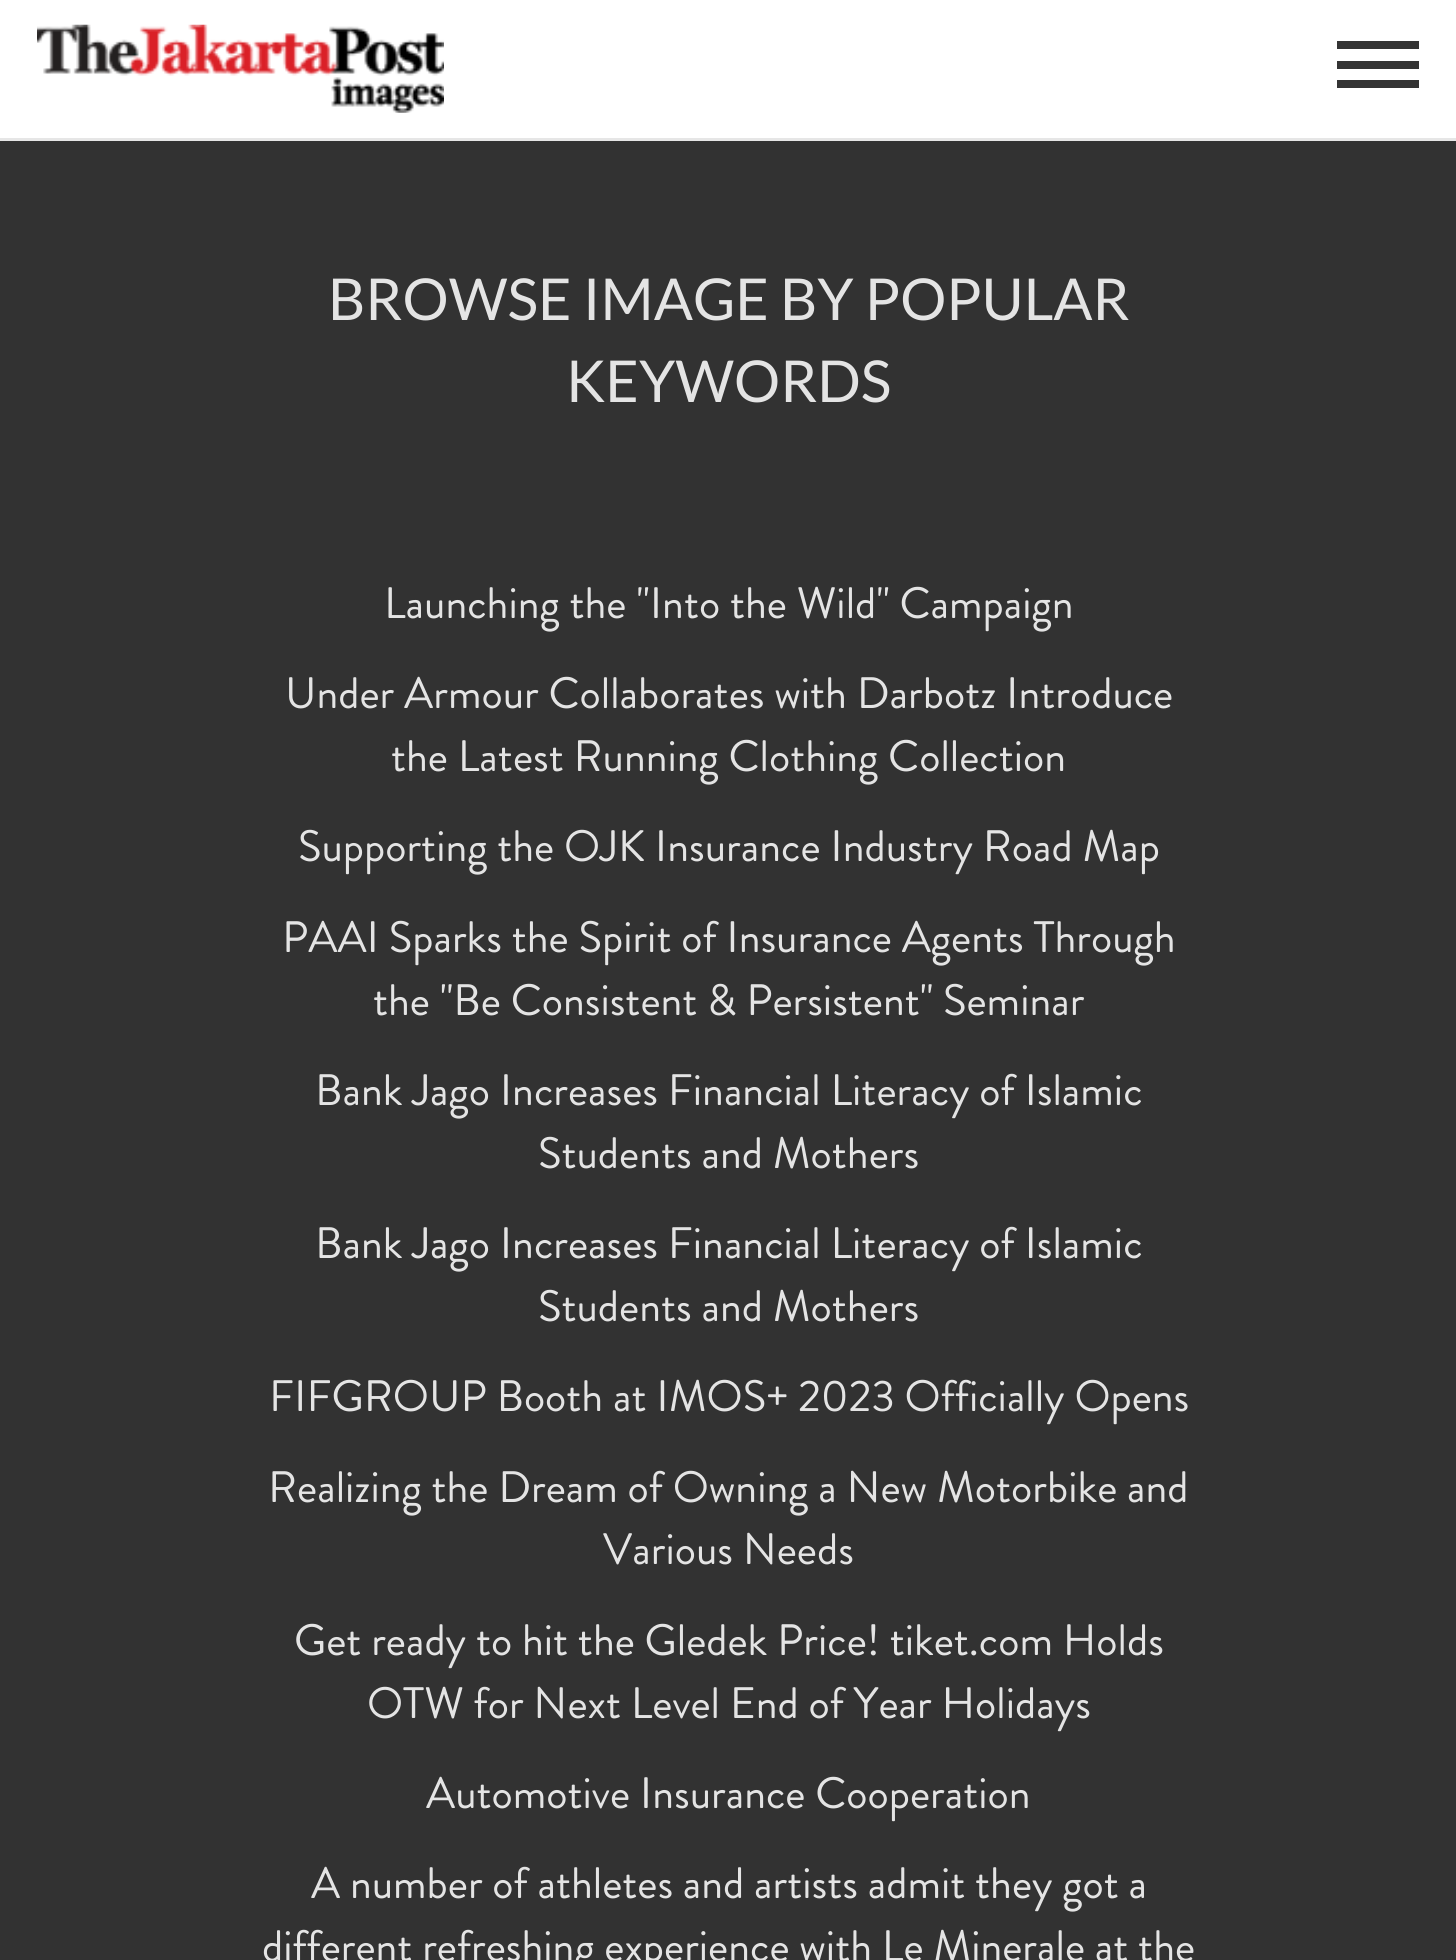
#include <cairo/cairo.h>
#include <math.h>
#include <stddef.h>

typedef struct { double x, y; const char *s; } line_t;
typedef struct { double x, y, w, h; unsigned color; } box_t;
static cairo_t *cr;

static void rgb(unsigned color)
{
	cairo_set_source_rgb(cr, (color >> 16) / 255.0, (color >> 8 & 255) / 255.0, (color & 255) / 255.0);
}

static void image(const char *path, double x, double y, double w, double h)
{
	cairo_surface_t *image = cairo_image_surface_create_from_png(path);
	cairo_save(cr);
	cairo_set_source_surface(cr, image, x, y);
	cairo_rectangle(cr, x, y, w, h);
	cairo_fill(cr);
	cairo_restore(cr);
	cairo_surface_destroy(image);
}

int main(void) {
	cairo_surface_t *surface = cairo_image_surface_create(CAIRO_FORMAT_RGB24, 1456, 1960);
	cr = cairo_create(surface);
	cairo_font_options_t *options = cairo_font_options_create();
	cairo_font_options_set_hint_metrics(options, CAIRO_HINT_METRICS_OFF);
	cairo_font_options_set_hint_style(options, CAIRO_HINT_STYLE_NONE);
	cairo_set_font_options(cr, options);
	cairo_set_miter_limit(cr, 4);
	rgb(0x323232);
	cairo_paint(cr);
	rgb(0xffffff);
	cairo_rectangle(cr, 0, 0, 1456, 138);
	cairo_fill(cr);
	rgb(0xe6e6e6);
	cairo_rectangle(cr, 0, 138, 1456, 3);
	cairo_fill(cr);
	image("img/1.png", 37, 24, 407, 89);
	{
		static const box_t items[] = {
			{1337, 41, 82, 8, 0x343434},
			{1337, 61, 82, 8, 0x343434},
			{1337, 80, 82, 8, 0x343434},
		};
		for (size_t i = 0; i < sizeof items / sizeof *items; i++) {
			rgb(items[i].color);
			cairo_rectangle(cr, items[i].x, items[i].y, items[i].w, items[i].h);
			cairo_fill(cr);
		}
	}
	cairo_select_font_face(cr, "Lato", CAIRO_FONT_SLANT_NORMAL, CAIRO_FONT_WEIGHT_NORMAL);
	cairo_set_font_size(cr, 57.75);
	rgb(0xe4e4e4);
	cairo_move_to(cr, 328, 320);
	cairo_show_text(cr, "BROWSE IMAGE BY POPULAR");
	cairo_move_to(cr, 566, 402);
	cairo_show_text(cr, "KEYWORDS");
	cairo_select_font_face(cr, "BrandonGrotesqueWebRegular", CAIRO_FONT_SLANT_NORMAL, CAIRO_FONT_WEIGHT_NORMAL);
	cairo_set_font_size(cr, 44);
	{
		static const line_t items[] = {
			{384, 618, "Launching the \"Into the Wild\" Campaign"},
			{285, 708, "Under Armour Collaborates with Darbotz Introduce"},
			{391, 771, "the Latest Running Clothing Collection"},
			{298, 861, "Supporting the OJK Insurance Industry Road Map"},
			{282, 952, "PAAI Sparks the Spirit of Insurance Agents Through"},
			{373, 1015, "the \"Be Consistent & Persistent\" Seminar"},
			{315, 1105, "Bank Jago Increases Financial Literacy of Islamic"},
			{538, 1168, "Students and Mothers"},
			{315, 1258, "Bank Jago Increases Financial Literacy of Islamic"},
			{538, 1321, "Students and Mothers"},
			{269, 1411, "FIFGROUP Booth at IMOS+ 2023 Officially Opens"},
			{268, 1502, "Realizing the Dream of Owning a New Motorbike and"},
			{603, 1564, "Various Needs"},
			{294, 1655, "Get ready to hit the Gledek Price! tiket.com Holds"},
			{367, 1718, "OTW for Next Level End of Year Holidays"},
			{426, 1808, "Automotive Insurance Cooperation"},
			{311, 1898, "A number of athletes and artists admit they got a"},
			{262, 1961, "different refreshing experience with Le Minerale at the"},
		};
		for (size_t i = 0; i < sizeof items / sizeof *items; i++) {
			cairo_move_to(cr, items[i].x, items[i].y);
			cairo_show_text(cr, items[i].s);
		}
	}
	cairo_surface_write_to_png(surface, "page.png");
	cairo_font_options_destroy(options);
	cairo_destroy(cr);
	cairo_surface_destroy(surface);
	return 0;
}
